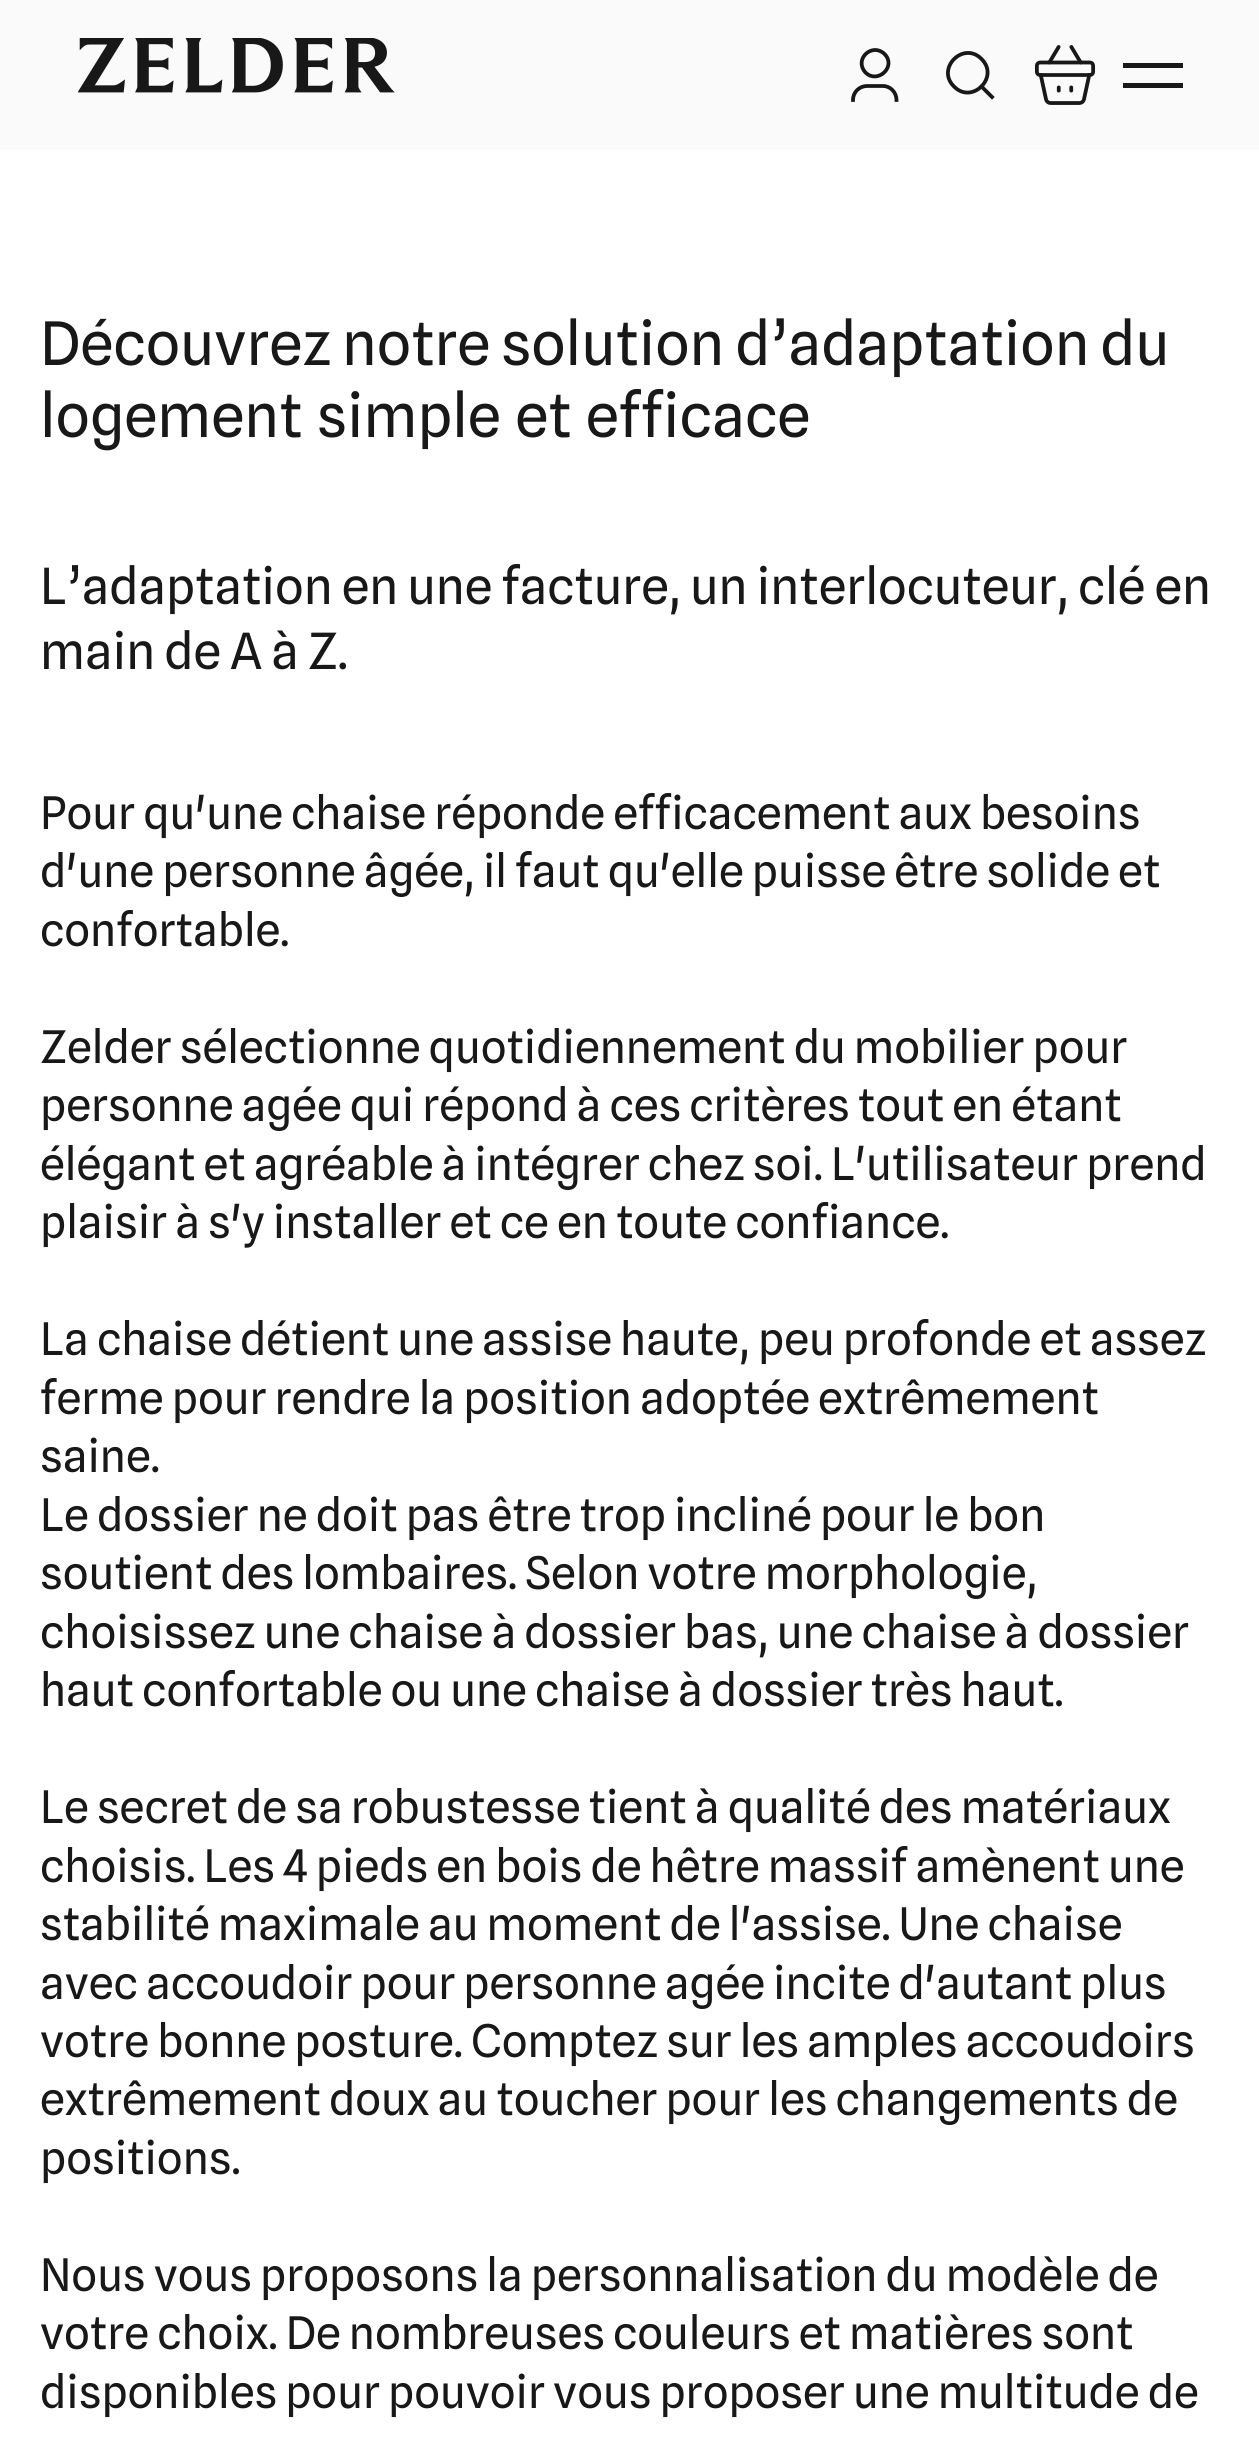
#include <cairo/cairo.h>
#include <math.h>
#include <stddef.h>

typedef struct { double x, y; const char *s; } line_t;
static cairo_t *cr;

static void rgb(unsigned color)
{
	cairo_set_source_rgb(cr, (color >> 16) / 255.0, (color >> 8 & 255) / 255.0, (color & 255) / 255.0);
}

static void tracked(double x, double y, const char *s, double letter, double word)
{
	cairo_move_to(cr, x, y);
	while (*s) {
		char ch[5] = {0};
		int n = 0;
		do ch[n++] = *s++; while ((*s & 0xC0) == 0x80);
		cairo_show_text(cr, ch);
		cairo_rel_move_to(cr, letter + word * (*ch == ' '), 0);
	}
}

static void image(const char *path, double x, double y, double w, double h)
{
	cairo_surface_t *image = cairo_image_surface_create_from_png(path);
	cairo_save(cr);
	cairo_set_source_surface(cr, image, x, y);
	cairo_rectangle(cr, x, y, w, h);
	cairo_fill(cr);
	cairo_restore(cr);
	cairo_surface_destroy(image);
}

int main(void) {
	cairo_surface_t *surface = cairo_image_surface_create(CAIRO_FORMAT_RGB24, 1259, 2440);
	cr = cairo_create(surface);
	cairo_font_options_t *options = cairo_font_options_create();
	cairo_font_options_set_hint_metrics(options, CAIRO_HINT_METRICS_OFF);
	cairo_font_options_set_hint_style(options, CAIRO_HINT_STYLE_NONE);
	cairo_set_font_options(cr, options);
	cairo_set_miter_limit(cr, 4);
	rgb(0xffffff);
	cairo_paint(cr);
	rgb(0xfafafa);
	cairo_rectangle(cr, 0, 0, 1259, 150);
	cairo_fill(cr);
	image("img/1.png", 78, 38, 317, 55);
	cairo_new_path(cr);
	cairo_move_to(cr, 884.5, 54);
	cairo_curve_to(cr, 897, 66.5, 877.5, 84.5, 865.5, 72.5);
	cairo_curve_to(cr, 853.5, 59.5, 872, 42, 884.5, 54);
	rgb(0x181818);
	cairo_set_line_width(cr, 3.8);
	cairo_set_line_cap(cr, CAIRO_LINE_CAP_ROUND);
	cairo_set_line_join(cr, CAIRO_LINE_JOIN_ROUND);
	cairo_stroke(cr);
	cairo_new_path(cr);
	cairo_move_to(cr, 853, 100);
	cairo_curve_to(cr, 853, 92, 859.5, 86, 867, 86);
	cairo_line_to(cr, 883, 86);
	cairo_curve_to(cr, 890.5, 86, 896.5, 92.5, 896.5, 100);
	cairo_set_line_cap(cr, CAIRO_LINE_CAP_SQUARE);
	cairo_stroke(cr);
	cairo_new_path(cr);
	cairo_move_to(cr, 981.5, 59);
	cairo_curve_to(cr, 1000, 77, 972, 105, 954, 86.5);
	cairo_curve_to(cr, 935.5, 68.5, 963.5, 40.5, 981.5, 59);
	cairo_set_line_cap(cr, CAIRO_LINE_CAP_ROUND);
	cairo_stroke(cr);
	cairo_new_path(cr);
	cairo_move_to(cr, 992, 97);
	cairo_line_to(cr, 981.5, 86.5);
	cairo_set_line_cap(cr, CAIRO_LINE_CAP_SQUARE);
	cairo_stroke(cr);
	image("img/2.png", 1034, 45, 62, 60);
	cairo_rectangle(cr, 1123, 63, 60, 5);
	cairo_fill(cr);
	cairo_rectangle(cr, 1123, 83, 60, 5);
	cairo_fill(cr);
	cairo_select_font_face(cr, "Spline Sans", CAIRO_FONT_SLANT_NORMAL, CAIRO_FONT_WEIGHT_NORMAL);
	cairo_set_font_size(cr, 60);
	cairo_move_to(cr, 40, 365);
	cairo_show_text(cr, "Découvrez notre solution d’adaptation du");
	tracked(40, 437, "logement simple et efficace", 0, 3.5);
	cairo_set_font_size(cr, 50);
	cairo_move_to(cr, 40, 604);
	cairo_show_text(cr, "L’adaptation en une facture, un interlocuteur, clé en");
	cairo_move_to(cr, 40, 669);
	cairo_show_text(cr, "main de A à Z.");
	cairo_set_font_size(cr, 45);
	{
		static const line_t items[] = {
			{40, 829, "Pour qu'une chaise réponde efficacement aux besoins"},
			{40, 887, "d'une personne âgée, il faut qu'elle puisse être solide et"},
			{40, 946, "confortable."},
			{40, 1063, "Zelder sélectionne quotidiennement du mobilier pour"},
			{40, 1121, "personne agée qui répond à ces critères tout en étant"},
			{40, 1180, "élégant et agréable à intégrer chez soi. L'utilisateur prend"},
			{40, 1238, "plaisir à s'y installer et ce en toute confiance."},
			{40, 1355, "La chaise détient une assise haute, peu profonde et assez"},
			{40, 1414, "ferme pour rendre la position adoptée extrêmement"},
			{40, 1472, "saine."},
			{40, 1531, "Le dossier ne doit pas être trop incliné pour le bon"},
			{40, 1589, "soutient des lombaires. Selon votre morphologie,"},
			{40, 1648, "choisissez une chaise à dossier bas, une chaise à dossier"},
			{40, 1706, "haut confortable ou une chaise à dossier très haut."},
			{40, 1823, "Le secret de sa robustesse tient à qualité des matériaux"},
			{40, 1882, "choisis. Les 4 pieds en bois de hêtre massif amènent une"},
			{40, 1940, "stabilité maximale au moment de l'assise. Une chaise"},
			{40, 1999, "avec accoudoir pour personne agée incite d'autant plus"},
			{40, 2057, "votre bonne posture. Comptez sur les amples accoudoirs"},
			{40, 2115, "extrêmement doux au toucher pour les changements de"},
			{40, 2174, "positions."},
			{40, 2291, "Nous vous proposons la personnalisation du modèle de"},
			{40, 2349, "votre choix. De nombreuses couleurs et matières sont"},
			{40, 2408, "disponibles pour pouvoir vous proposer une multitude de"},
		};
		for (size_t i = 0; i < sizeof items / sizeof *items; i++) {
			cairo_move_to(cr, items[i].x, items[i].y);
			cairo_show_text(cr, items[i].s);
		}
	}
	cairo_surface_write_to_png(surface, "page.png");
	cairo_font_options_destroy(options);
	cairo_destroy(cr);
	cairo_surface_destroy(surface);
	return 0;
}
